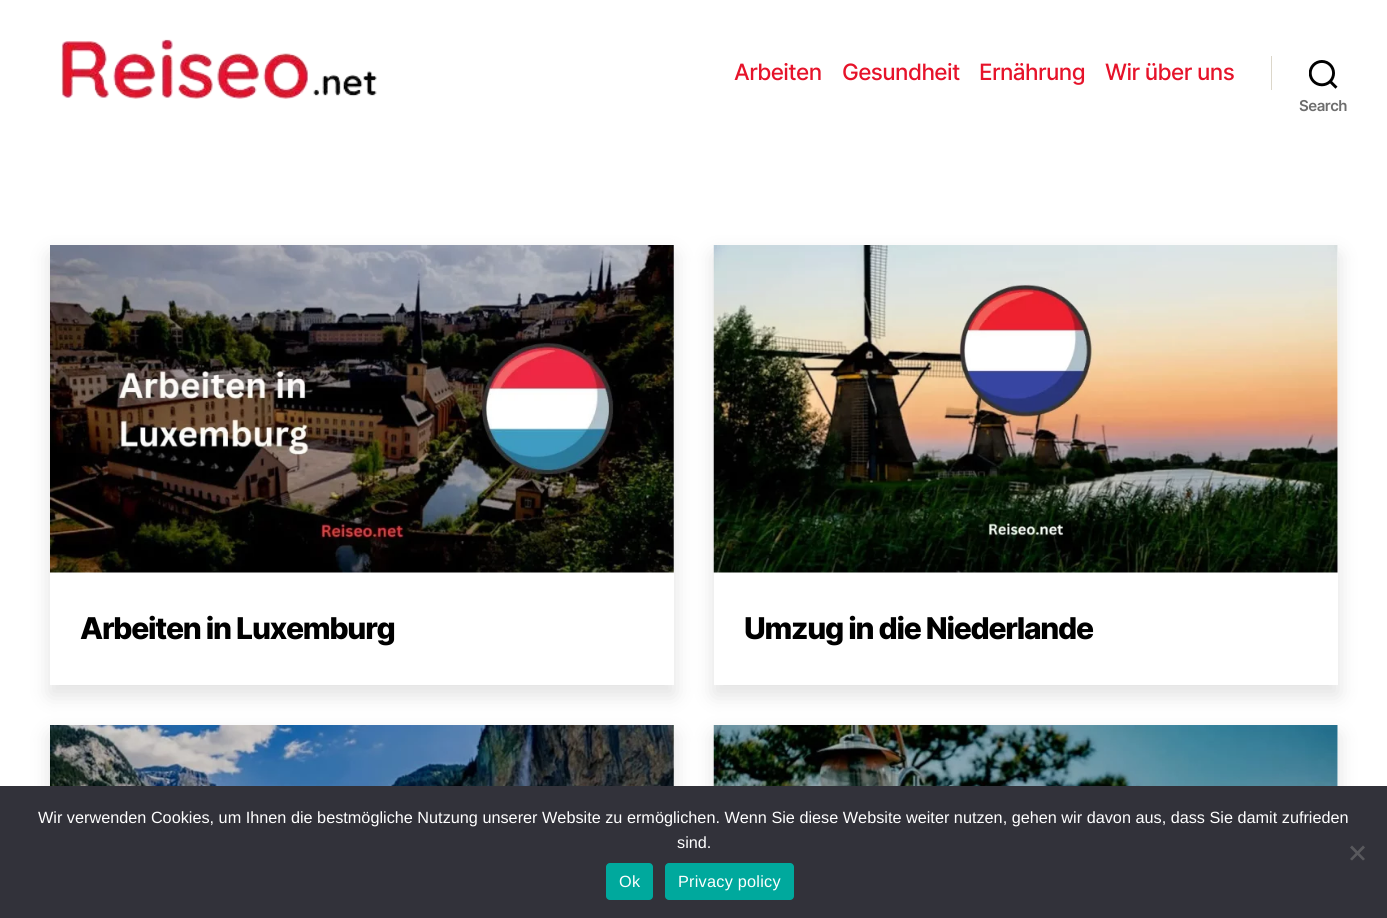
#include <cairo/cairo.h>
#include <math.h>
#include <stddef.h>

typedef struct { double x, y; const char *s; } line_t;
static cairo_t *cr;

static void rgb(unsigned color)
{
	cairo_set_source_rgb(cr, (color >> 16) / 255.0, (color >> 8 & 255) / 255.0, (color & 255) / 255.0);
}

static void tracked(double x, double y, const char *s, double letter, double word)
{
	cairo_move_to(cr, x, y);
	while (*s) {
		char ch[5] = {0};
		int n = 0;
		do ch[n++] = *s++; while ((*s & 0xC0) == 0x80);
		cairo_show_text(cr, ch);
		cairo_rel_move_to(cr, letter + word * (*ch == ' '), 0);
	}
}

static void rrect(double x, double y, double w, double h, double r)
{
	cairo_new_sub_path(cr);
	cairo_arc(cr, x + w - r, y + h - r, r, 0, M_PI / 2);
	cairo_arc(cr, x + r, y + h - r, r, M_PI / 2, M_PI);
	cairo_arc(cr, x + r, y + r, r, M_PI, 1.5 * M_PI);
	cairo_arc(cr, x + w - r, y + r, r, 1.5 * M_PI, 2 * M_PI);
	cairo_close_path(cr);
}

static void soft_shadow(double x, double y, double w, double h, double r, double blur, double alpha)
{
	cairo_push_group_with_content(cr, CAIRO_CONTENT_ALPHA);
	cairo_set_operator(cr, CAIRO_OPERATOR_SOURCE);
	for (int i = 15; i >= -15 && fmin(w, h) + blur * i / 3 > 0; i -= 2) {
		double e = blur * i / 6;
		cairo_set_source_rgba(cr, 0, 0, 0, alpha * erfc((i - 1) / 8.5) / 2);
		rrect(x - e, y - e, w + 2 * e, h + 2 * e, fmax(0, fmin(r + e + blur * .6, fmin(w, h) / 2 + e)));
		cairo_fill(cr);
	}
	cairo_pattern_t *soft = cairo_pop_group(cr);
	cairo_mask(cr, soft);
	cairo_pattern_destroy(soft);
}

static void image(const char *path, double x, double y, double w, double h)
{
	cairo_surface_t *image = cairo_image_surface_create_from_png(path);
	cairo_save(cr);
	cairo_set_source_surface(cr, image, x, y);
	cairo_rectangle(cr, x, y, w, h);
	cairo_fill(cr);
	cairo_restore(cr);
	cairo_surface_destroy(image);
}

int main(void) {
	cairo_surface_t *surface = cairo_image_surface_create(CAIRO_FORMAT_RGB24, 1387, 918);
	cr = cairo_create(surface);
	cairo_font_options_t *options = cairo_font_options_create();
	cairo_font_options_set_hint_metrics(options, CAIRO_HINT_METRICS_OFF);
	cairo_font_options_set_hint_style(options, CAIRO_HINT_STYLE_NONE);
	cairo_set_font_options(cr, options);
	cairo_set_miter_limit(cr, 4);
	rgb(0xffffff);
	cairo_paint(cr);
	image("img/1.png", 61, 39, 316, 60);
	rgb(0xdcd7ca);
	cairo_rectangle(cr, 1271, 56, 1, 34);
	cairo_fill(cr);
	image("img/2.png", 1309, 60, 29, 29);
	rgb(0x000000);
	soft_shadow(50, 255, 624, 440, 0, 11, 0.12);
	rgb(0xffffff);
	cairo_rectangle(cr, 50, 245, 624, 440);
	cairo_fill(cr);
	image("img/3.png", 50, 245, 624, 328);
	rgb(0x000000);
	soft_shadow(714, 255, 624, 440, 0, 11, 0.12);
	rgb(0xffffff);
	cairo_rectangle(cr, 714, 245, 624, 440);
	cairo_fill(cr);
	image("img/4.png", 713, 245, 625, 328);
	rgb(0x000000);
	soft_shadow(50, 735, 624, 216, 0, 11, 0.12);
	image("img/5.png", 50, 725, 624, 61);
	soft_shadow(714, 735, 624, 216, 0, 11, 0.12);
	rgb(0xffffff);
	cairo_rectangle(cr, 1337, 725, 1, 61);
	cairo_fill(cr);
	image("img/6.png", 713, 725, 625, 61);
	rgb(0x32323a);
	cairo_rectangle(cr, 0, 786, 1387, 132);
	cairo_fill(cr);
	rgb(0x59595d);
	cairo_new_path(cr);
	cairo_move_to(cr, 1363, 845.5);
	cairo_line_to(cr, 1365, 847.5);
	cairo_line_to(cr, 1352, 860.5);
	cairo_line_to(cr, 1350, 859);
	cairo_close_path(cr);
	cairo_fill(cr);
	cairo_new_path(cr);
	cairo_move_to(cr, 1350, 847.5);
	cairo_line_to(cr, 1352, 845.5);
	cairo_line_to(cr, 1365, 859);
	cairo_line_to(cr, 1363, 860.5);
	cairo_close_path(cr);
	cairo_fill(cr);
	rgb(0x00a99d);
	rrect(606, 863, 47, 37, 4);
	cairo_fill(cr);
	rrect(665, 863, 129, 37, 4);
	cairo_fill(cr);
	cairo_select_font_face(cr, "Inter Medium", CAIRO_FONT_SLANT_NORMAL, CAIRO_FONT_WEIGHT_NORMAL);
	cairo_set_font_size(cr, 22.5);
	rgb(0xe6132a);
	{
		static const line_t items[] = {
			{734, 80, "Arbeiten"},
			{842, 80, "Gesundheit"},
			{979, 80, "Ernährung"},
			{1105, 80, "Wir über uns"},
		};
		for (size_t i = 0; i < sizeof items / sizeof *items; i++) {
			tracked(items[i].x, items[i].y, items[i].s, -0.6, 0);
		}
	}
	cairo_select_font_face(cr, "Inter SemiBold", CAIRO_FONT_SLANT_NORMAL, CAIRO_FONT_WEIGHT_NORMAL);
	cairo_set_font_size(cr, 15);
	rgb(0x6d6d6d);
	tracked(1299, 111, "Search", -0.5, 0);
	cairo_select_font_face(cr, "Inter ExtraBold", CAIRO_FONT_SLANT_NORMAL, CAIRO_FONT_WEIGHT_NORMAL);
	cairo_set_font_size(cr, 30);
	rgb(0x000000);
	tracked(80, 639, "Arbeiten in Luxemburg", -1.25, 0);
	tracked(744, 639, "Umzug in die Niederlande", -1.25, 0);
	cairo_select_font_face(cr, "Liberation Sans", CAIRO_FONT_SLANT_NORMAL, CAIRO_FONT_WEIGHT_NORMAL);
	cairo_set_font_size(cr, 16.25);
	rgb(0xffffff);
	cairo_move_to(cr, 38, 823);
	cairo_show_text(cr, "Wir verwenden Cookies, um Ihnen die bestmögliche Nutzung unserer Website zu ermöglichen. Wenn Sie diese Website weiter nutzen, gehen wir davon aus, dass Sie damit zufrieden");
	cairo_move_to(cr, 677, 848);
	cairo_show_text(cr, "sind.");
	tracked(619, 887, "Ok", 0.25, 0);
	tracked(678, 887, "Privacy policy", 0.25, 0);
	cairo_surface_write_to_png(surface, "page.png");
	cairo_font_options_destroy(options);
	cairo_destroy(cr);
	cairo_surface_destroy(surface);
	return 0;
}
